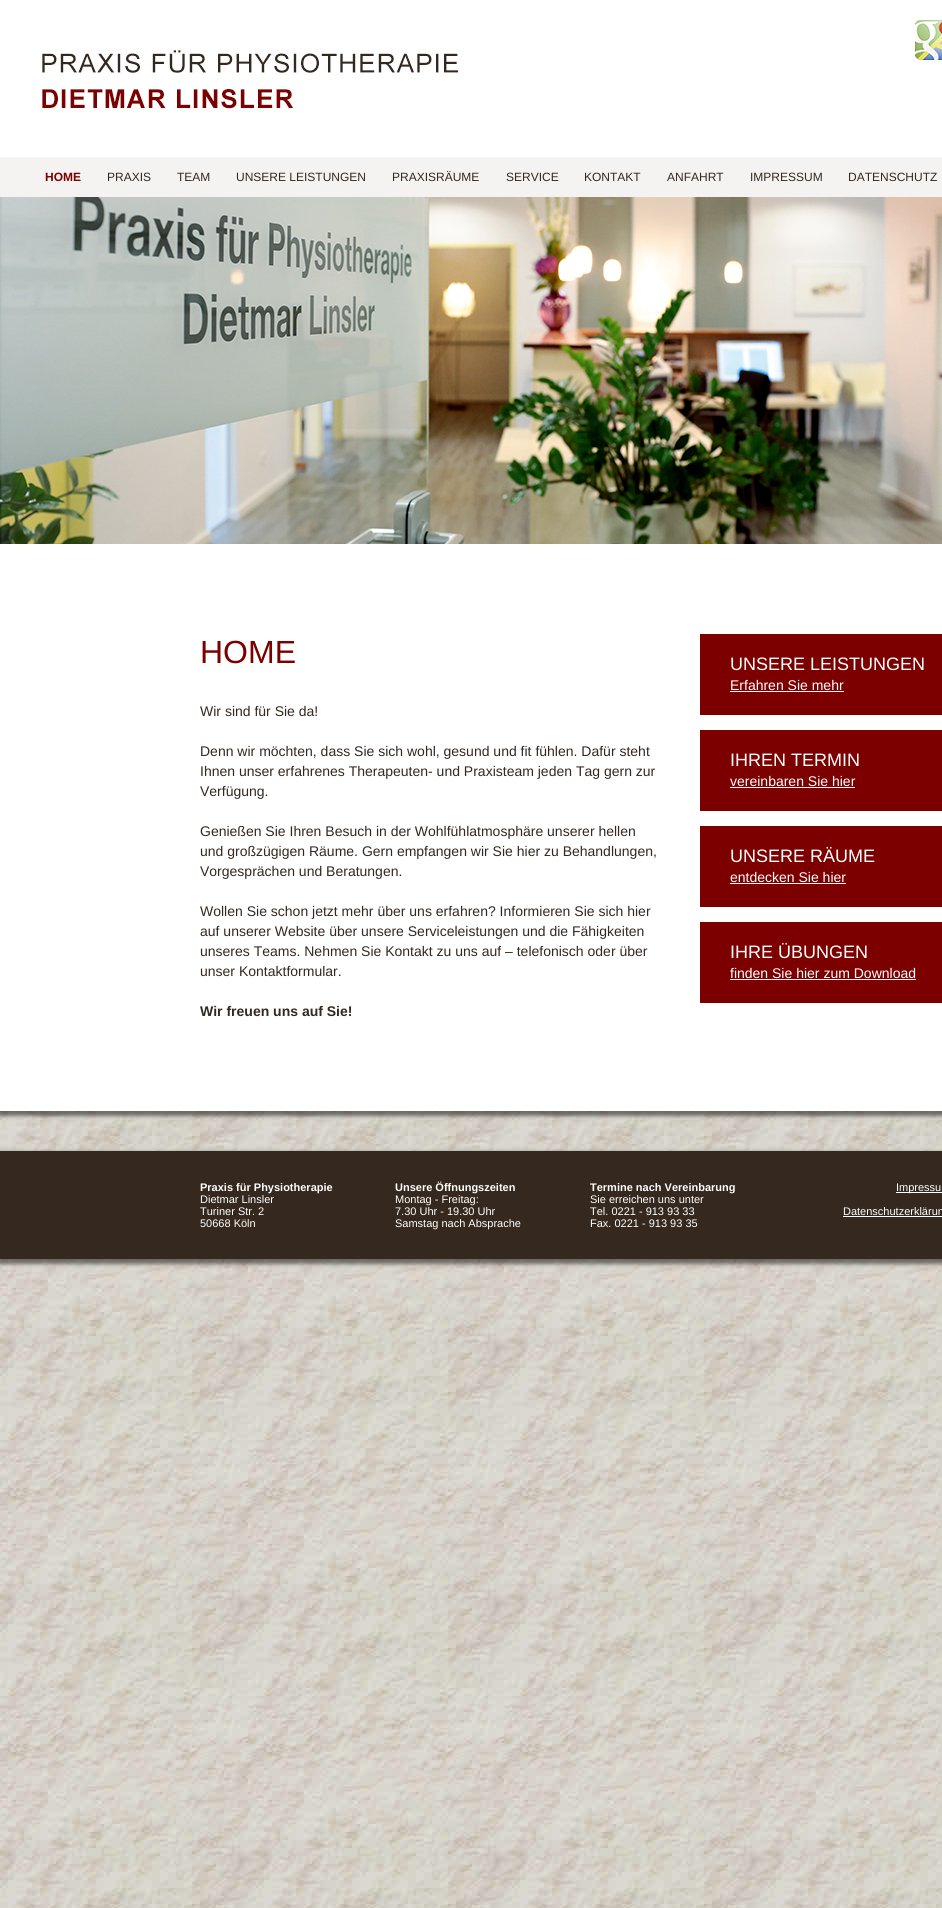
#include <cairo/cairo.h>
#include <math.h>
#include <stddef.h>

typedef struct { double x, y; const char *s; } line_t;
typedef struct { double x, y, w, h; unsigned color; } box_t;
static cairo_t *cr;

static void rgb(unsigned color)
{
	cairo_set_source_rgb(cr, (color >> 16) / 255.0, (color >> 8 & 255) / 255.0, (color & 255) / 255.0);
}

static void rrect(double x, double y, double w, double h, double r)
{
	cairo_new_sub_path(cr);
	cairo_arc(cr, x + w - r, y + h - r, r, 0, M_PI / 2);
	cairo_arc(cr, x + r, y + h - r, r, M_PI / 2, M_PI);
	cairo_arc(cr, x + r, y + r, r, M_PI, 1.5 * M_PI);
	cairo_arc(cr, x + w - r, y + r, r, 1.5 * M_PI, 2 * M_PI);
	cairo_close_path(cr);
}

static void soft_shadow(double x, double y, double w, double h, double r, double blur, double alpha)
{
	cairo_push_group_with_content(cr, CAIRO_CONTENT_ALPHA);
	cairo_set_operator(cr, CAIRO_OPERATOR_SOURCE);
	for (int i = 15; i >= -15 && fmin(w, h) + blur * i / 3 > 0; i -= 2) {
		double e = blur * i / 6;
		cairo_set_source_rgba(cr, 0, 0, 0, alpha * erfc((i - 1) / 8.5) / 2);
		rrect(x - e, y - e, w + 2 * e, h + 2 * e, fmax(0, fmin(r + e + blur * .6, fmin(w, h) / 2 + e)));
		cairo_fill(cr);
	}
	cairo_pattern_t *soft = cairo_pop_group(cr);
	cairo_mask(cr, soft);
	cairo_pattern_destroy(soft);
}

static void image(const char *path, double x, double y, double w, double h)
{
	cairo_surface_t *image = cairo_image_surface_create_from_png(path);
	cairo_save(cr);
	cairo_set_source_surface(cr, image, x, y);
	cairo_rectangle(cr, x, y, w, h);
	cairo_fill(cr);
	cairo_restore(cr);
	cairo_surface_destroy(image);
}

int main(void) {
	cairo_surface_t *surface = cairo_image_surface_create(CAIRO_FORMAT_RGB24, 942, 1908);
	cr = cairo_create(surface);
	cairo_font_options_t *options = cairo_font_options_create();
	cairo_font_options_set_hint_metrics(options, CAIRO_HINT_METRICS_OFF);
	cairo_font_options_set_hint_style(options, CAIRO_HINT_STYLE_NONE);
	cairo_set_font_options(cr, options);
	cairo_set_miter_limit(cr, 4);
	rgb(0xffffff);
	cairo_paint(cr);
	image("img/1.png", 0, 1111, 942, 797);
	rgb(0x000000);
	soft_shadow(-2, 1, 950, 1115, 0, 2, 0.5);
	rgb(0xffffff);
	cairo_rectangle(cr, 0, 0, 942, 1111);
	cairo_fill(cr);
	image("img/2.png", 0, 0, 484, 157);
	image("img/3.png", 915, 20, 27, 40);
	rgb(0xf4f3f1);
	cairo_rectangle(cr, 0, 157, 942, 40);
	cairo_fill(cr);
	image("img/4.png", 0, 197, 942, 347);
	{
		static const box_t items[] = {
			{700, 634, 242, 81, 0x7c0000},
			{730, 691, 114, 1, 0xffffff},
			{700, 730, 242, 81, 0x7c0000},
			{730, 787, 125, 1, 0xffffff},
			{700, 826, 242, 81, 0x7c0000},
			{730, 883, 116, 1, 0xffffff},
			{700, 922, 242, 81, 0x7c0000},
			{730, 979, 186, 1, 0xffffff},
		};
		for (size_t i = 0; i < sizeof items / sizeof *items; i++) {
			rgb(items[i].color);
			cairo_rectangle(cr, items[i].x, items[i].y, items[i].w, items[i].h);
			cairo_fill(cr);
		}
	}
	rgb(0x000000);
	soft_shadow(-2, 1152, 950, 112, 0, 2, 0.5);
	{
		static const box_t items[] = {
			{0, 1151, 942, 108, 0x34281f},
			{896, 1192, 46, 1, 0xffffff},
			{843, 1216, 99, 1, 0xffffff},
		};
		for (size_t i = 0; i < sizeof items / sizeof *items; i++) {
			rgb(items[i].color);
			cairo_rectangle(cr, items[i].x, items[i].y, items[i].w, items[i].h);
			cairo_fill(cr);
		}
	}
	cairo_select_font_face(cr, "Liberation Sans", CAIRO_FONT_SLANT_NORMAL, CAIRO_FONT_WEIGHT_BOLD);
	cairo_set_font_size(cr, 12);
	rgb(0x7c0000);
	cairo_move_to(cr, 45, 181);
	cairo_show_text(cr, "HOME");
	cairo_select_font_face(cr, "Liberation Sans", CAIRO_FONT_SLANT_NORMAL, CAIRO_FONT_WEIGHT_NORMAL);
	rgb(0x34281f);
	{
		static const line_t items[] = {
			{107, 181, "PRAXIS"},
			{177, 181, "TEAM"},
			{236, 181, "UNSERE LEISTUNGEN"},
			{392, 181, "PRAXISRÄUME"},
			{506, 181, "SERVICE"},
			{584, 181, "KONTAKT"},
			{667, 181, "ANFAHRT"},
			{750, 181, "IMPRESSUM"},
			{848, 181, "DATENSCHUTZ"},
		};
		for (size_t i = 0; i < sizeof items / sizeof *items; i++) {
			cairo_move_to(cr, items[i].x, items[i].y);
			cairo_show_text(cr, items[i].s);
		}
	}
	cairo_set_font_size(cr, 32);
	rgb(0x7c0000);
	cairo_move_to(cr, 200, 663);
	cairo_show_text(cr, "HOME");
	cairo_set_font_size(cr, 14);
	rgb(0x34281f);
	{
		static const line_t items[] = {
			{200, 716, "Wir sind für Sie da!"},
			{200, 756, "Denn wir möchten, dass Sie sich wohl, gesund und fit fühlen. Dafür steht"},
			{200, 776, "Ihnen unser erfahrenes Therapeuten- und Praxisteam jeden Tag gern zur"},
			{200, 796, "Verfügung."},
			{200, 836, "Genießen Sie Ihren Besuch in der Wohlfühlatmosphäre unserer hellen"},
			{200, 856, "und großzügigen Räume. Gern empfangen wir Sie hier zu Behandlungen,"},
			{200, 876, "Vorgesprächen und Beratungen."},
			{200, 916, "Wollen Sie schon jetzt mehr über uns erfahren? Informieren Sie sich hier"},
			{200, 936, "auf unserer Website über unsere Serviceleistungen und die Fähigkeiten"},
			{200, 956, "unseres Teams. Nehmen Sie Kontakt zu uns auf – telefonisch oder über"},
			{200, 976, "unser Kontaktformular."},
		};
		for (size_t i = 0; i < sizeof items / sizeof *items; i++) {
			cairo_move_to(cr, items[i].x, items[i].y);
			cairo_show_text(cr, items[i].s);
		}
	}
	cairo_select_font_face(cr, "Liberation Sans", CAIRO_FONT_SLANT_NORMAL, CAIRO_FONT_WEIGHT_BOLD);
	cairo_move_to(cr, 200, 1016);
	cairo_show_text(cr, "Wir freuen uns auf Sie!");
	cairo_select_font_face(cr, "Liberation Sans", CAIRO_FONT_SLANT_NORMAL, CAIRO_FONT_WEIGHT_NORMAL);
	cairo_set_font_size(cr, 18);
	rgb(0xffffff);
	cairo_move_to(cr, 730, 670);
	cairo_show_text(cr, "UNSERE LEISTUNGEN");
	cairo_set_font_size(cr, 14);
	cairo_move_to(cr, 730, 690);
	cairo_show_text(cr, "Erfahren Sie mehr");
	cairo_set_font_size(cr, 18);
	cairo_move_to(cr, 730, 766);
	cairo_show_text(cr, "IHREN TERMIN");
	cairo_set_font_size(cr, 14);
	cairo_move_to(cr, 730, 786);
	cairo_show_text(cr, "vereinbaren Sie hier");
	cairo_set_font_size(cr, 18);
	cairo_move_to(cr, 730, 862);
	cairo_show_text(cr, "UNSERE RÄUME");
	cairo_set_font_size(cr, 14);
	cairo_move_to(cr, 730, 882);
	cairo_show_text(cr, "entdecken Sie hier");
	cairo_set_font_size(cr, 18);
	cairo_move_to(cr, 730, 958);
	cairo_show_text(cr, "IHRE ÜBUNGEN");
	cairo_set_font_size(cr, 14);
	cairo_move_to(cr, 730, 978);
	cairo_show_text(cr, "finden Sie hier zum Download");
	cairo_select_font_face(cr, "Liberation Sans", CAIRO_FONT_SLANT_NORMAL, CAIRO_FONT_WEIGHT_BOLD);
	cairo_set_font_size(cr, 11);
	cairo_move_to(cr, 200, 1191);
	cairo_show_text(cr, "Praxis für Physiotherapie");
	cairo_select_font_face(cr, "Liberation Sans", CAIRO_FONT_SLANT_NORMAL, CAIRO_FONT_WEIGHT_NORMAL);
	{
		static const line_t items[] = {
			{200, 1203, "Dietmar Linsler"},
			{200, 1215, "Turiner Str. 2"},
			{200, 1227, "50668 Köln"},
		};
		for (size_t i = 0; i < sizeof items / sizeof *items; i++) {
			cairo_move_to(cr, items[i].x, items[i].y);
			cairo_show_text(cr, items[i].s);
		}
	}
	cairo_select_font_face(cr, "Liberation Sans", CAIRO_FONT_SLANT_NORMAL, CAIRO_FONT_WEIGHT_BOLD);
	cairo_move_to(cr, 395, 1191);
	cairo_show_text(cr, "Unsere Öffnungszeiten");
	cairo_select_font_face(cr, "Liberation Sans", CAIRO_FONT_SLANT_NORMAL, CAIRO_FONT_WEIGHT_NORMAL);
	{
		static const line_t items[] = {
			{395, 1203, "Montag - Freitag:"},
			{395, 1215, "7.30 Uhr - 19.30 Uhr"},
			{395, 1227, "Samstag nach Absprache"},
		};
		for (size_t i = 0; i < sizeof items / sizeof *items; i++) {
			cairo_move_to(cr, items[i].x, items[i].y);
			cairo_show_text(cr, items[i].s);
		}
	}
	cairo_select_font_face(cr, "Liberation Sans", CAIRO_FONT_SLANT_NORMAL, CAIRO_FONT_WEIGHT_BOLD);
	cairo_move_to(cr, 590, 1191);
	cairo_show_text(cr, "Termine nach Vereinbarung");
	cairo_select_font_face(cr, "Liberation Sans", CAIRO_FONT_SLANT_NORMAL, CAIRO_FONT_WEIGHT_NORMAL);
	{
		static const line_t items[] = {
			{590, 1203, "Sie erreichen uns unter"},
			{590, 1215, "Tel. 0221 - 913 93 33"},
			{590, 1227, "Fax. 0221 - 913 93 35"},
			{896, 1191, "Impressu"},
			{843, 1215, "Datenschutzerklärun"},
		};
		for (size_t i = 0; i < sizeof items / sizeof *items; i++) {
			cairo_move_to(cr, items[i].x, items[i].y);
			cairo_show_text(cr, items[i].s);
		}
	}
	cairo_surface_write_to_png(surface, "page.png");
	cairo_font_options_destroy(options);
	cairo_destroy(cr);
	cairo_surface_destroy(surface);
	return 0;
}
